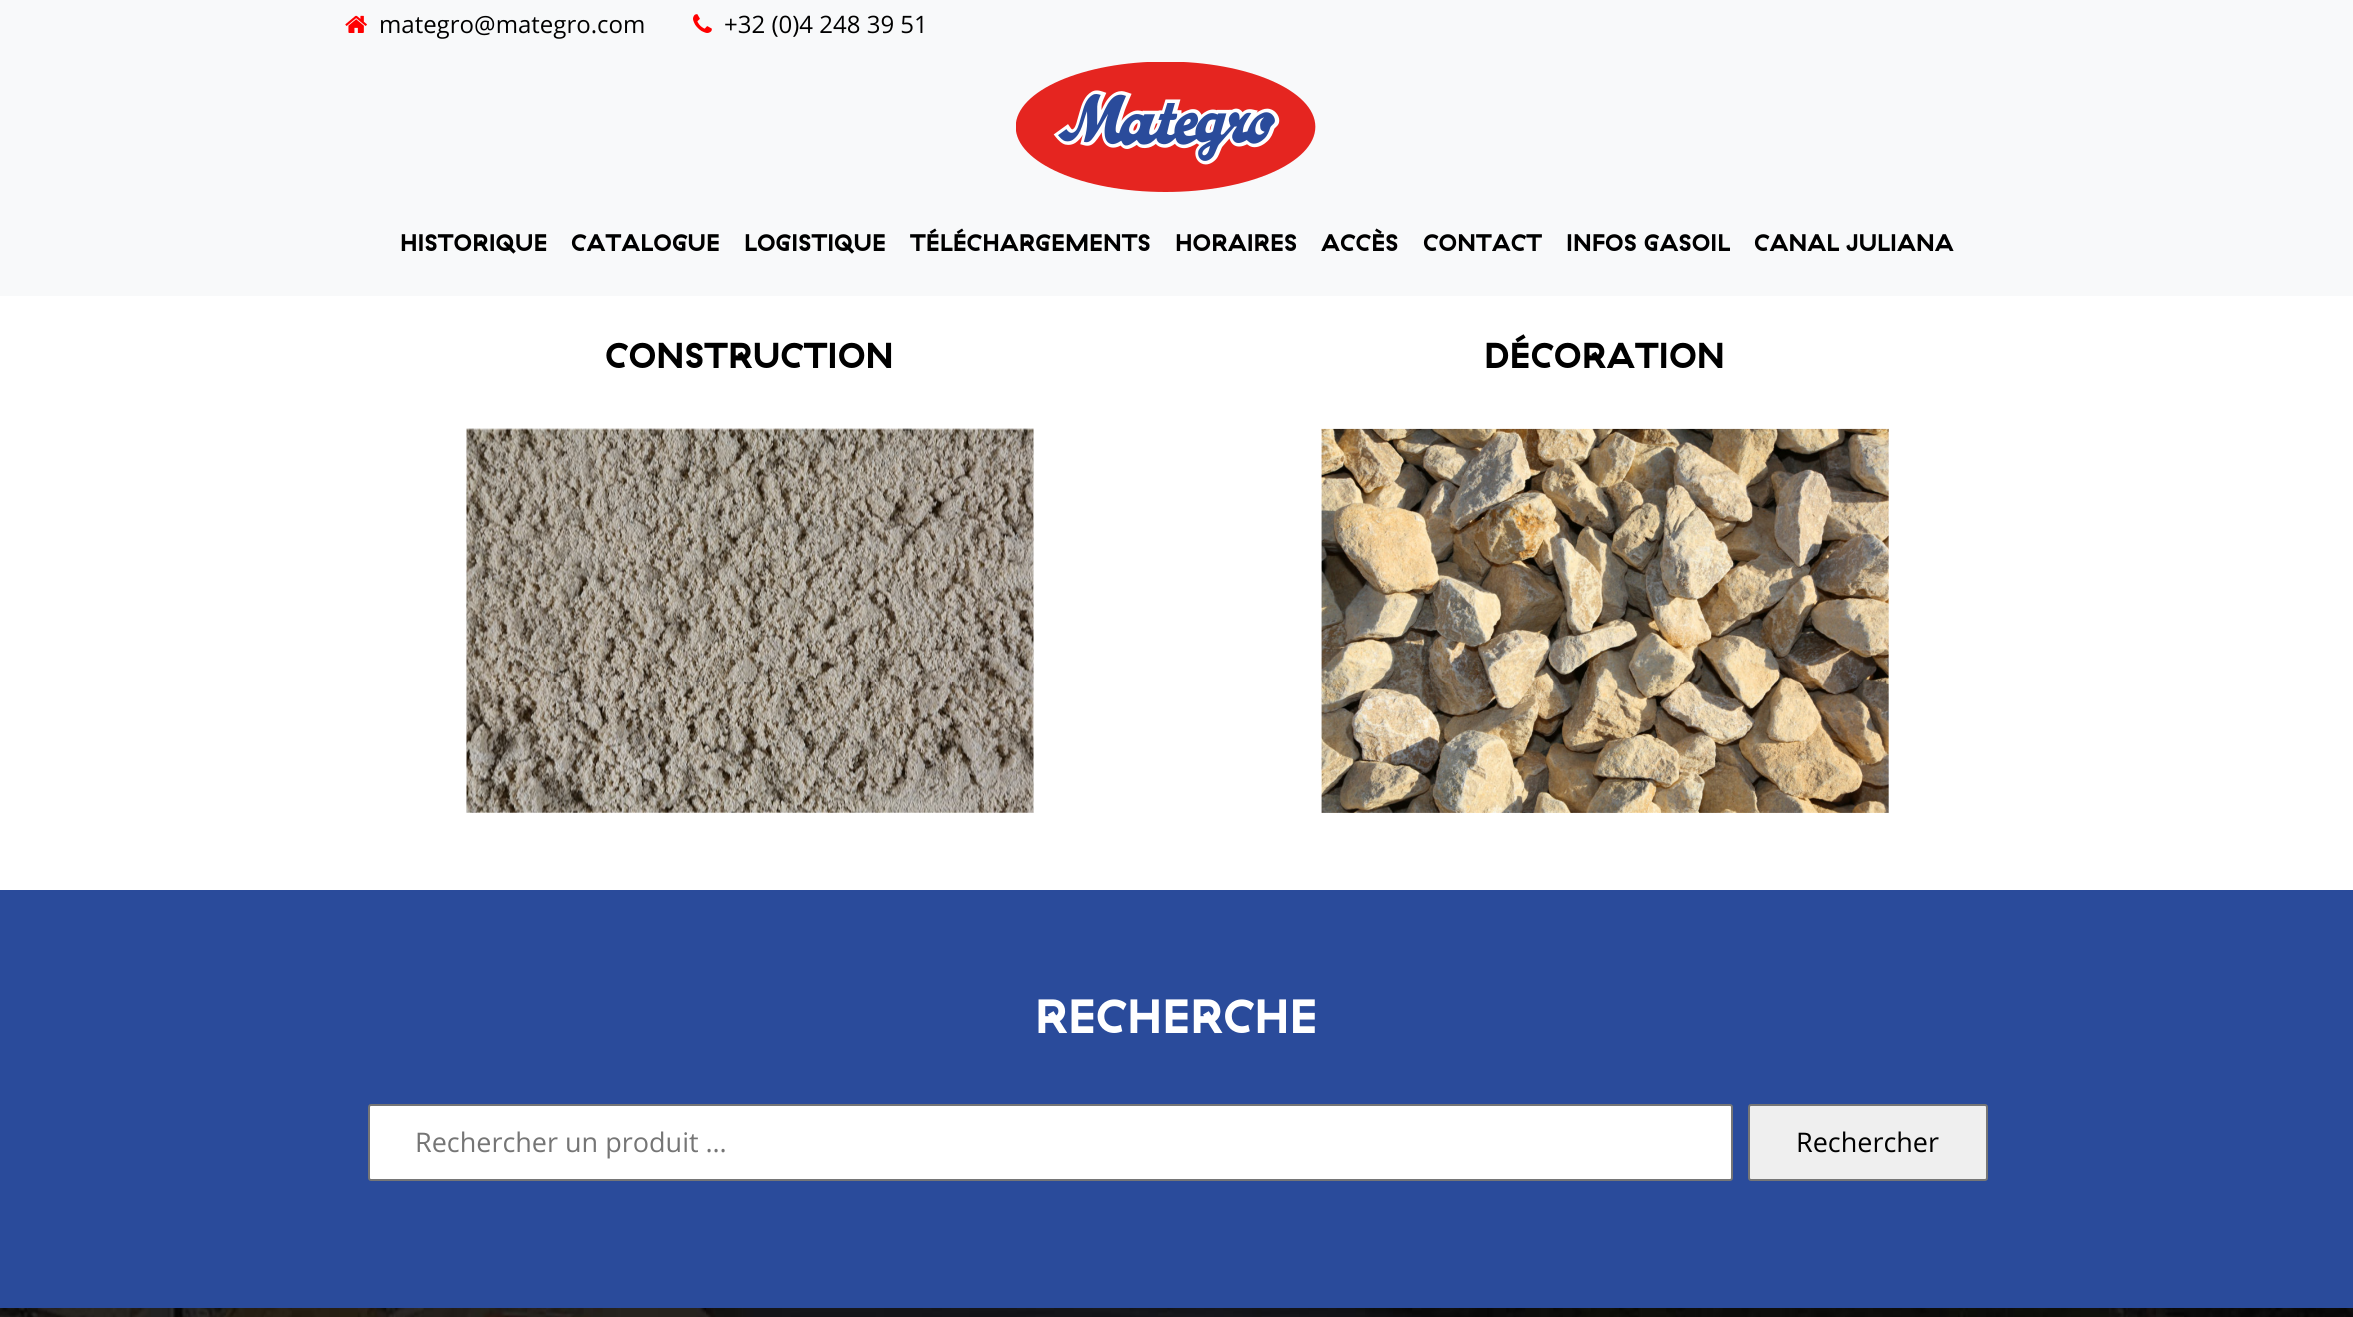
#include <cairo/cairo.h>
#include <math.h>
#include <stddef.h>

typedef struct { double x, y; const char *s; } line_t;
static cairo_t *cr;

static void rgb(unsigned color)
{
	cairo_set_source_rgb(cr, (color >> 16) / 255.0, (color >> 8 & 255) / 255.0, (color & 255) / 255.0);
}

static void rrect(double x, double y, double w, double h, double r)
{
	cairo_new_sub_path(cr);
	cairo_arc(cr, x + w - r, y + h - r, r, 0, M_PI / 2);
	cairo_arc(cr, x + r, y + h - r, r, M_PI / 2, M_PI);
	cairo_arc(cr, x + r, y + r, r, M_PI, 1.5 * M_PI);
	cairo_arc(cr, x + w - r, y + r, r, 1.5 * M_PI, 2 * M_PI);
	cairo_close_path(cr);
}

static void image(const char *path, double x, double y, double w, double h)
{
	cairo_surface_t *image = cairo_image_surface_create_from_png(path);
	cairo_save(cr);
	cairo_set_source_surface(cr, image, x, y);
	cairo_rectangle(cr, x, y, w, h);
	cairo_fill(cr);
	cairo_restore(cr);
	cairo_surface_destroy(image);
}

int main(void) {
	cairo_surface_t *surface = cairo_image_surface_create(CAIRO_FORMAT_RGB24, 2353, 1317);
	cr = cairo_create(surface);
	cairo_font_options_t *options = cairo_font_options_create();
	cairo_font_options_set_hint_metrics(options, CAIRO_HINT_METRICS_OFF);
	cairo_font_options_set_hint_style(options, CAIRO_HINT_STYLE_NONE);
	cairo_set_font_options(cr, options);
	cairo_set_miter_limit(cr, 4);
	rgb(0xffffff);
	cairo_paint(cr);
	rgb(0xf8f9fa);
	cairo_rectangle(cr, 0, 0, 2353, 296);
	cairo_fill(cr);
	image("img/1.png", 345, 15, 22, 18);
	image("img/2.png", 693, 14, 19, 19);
	image("img/3.png", 1016, 62, 300, 130);
	image("img/4.png", 466, 428, 568, 385);
	image("img/5.png", 1321, 428, 568, 385);
	rgb(0x2a4b9b);
	cairo_rectangle(cr, 0, 890, 2353, 418);
	cairo_fill(cr);
	rgb(0xffffff);
	rrect(369, 1105, 1363, 75, 2);
	cairo_fill_preserve(cr);
	rgb(0x767676);
	cairo_stroke(cr);
	rgb(0xefefef);
	rrect(1749, 1105, 238, 75, 2);
	cairo_fill_preserve(cr);
	rgb(0x767676);
	cairo_stroke(cr);
	image("img/6.png", 0, 1308, 2353, 9);
	cairo_select_font_face(cr, "Open Sans", CAIRO_FONT_SLANT_NORMAL, CAIRO_FONT_WEIGHT_NORMAL);
	cairo_set_font_size(cr, 24);
	rgb(0x000000);
	cairo_move_to(cr, 379, 33);
	cairo_show_text(cr, "mategro@mategro.com");
	cairo_move_to(cr, 724, 33);
	cairo_show_text(cr, "+32 (0)4 248 39 51");
	cairo_select_font_face(cr, "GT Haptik", CAIRO_FONT_SLANT_NORMAL, CAIRO_FONT_WEIGHT_BOLD);
	{
		static const line_t items[] = {
			{400, 251, "HISTORIQUE"},
			{571, 251, "CATALOGUE"},
			{744, 251, "LOGISTIQUE"},
			{910, 251, "TÉLÉCHARGEMENTS"},
			{1175, 251, "HORAIRES"},
			{1321, 251, "ACCÈS"},
			{1423, 251, "CONTACT"},
			{1566, 251, "INFOS GASOIL"},
			{1754, 251, "CANAL JULIANA"},
		};
		for (size_t i = 0; i < sizeof items / sizeof *items; i++) {
			cairo_move_to(cr, items[i].x, items[i].y);
			cairo_show_text(cr, items[i].s);
		}
	}
	cairo_set_font_size(cr, 36);
	cairo_move_to(cr, 605, 368);
	cairo_show_text(cr, "CONSTRUCTION");
	cairo_move_to(cr, 1484, 368);
	cairo_show_text(cr, "DÉCORATION");
	cairo_set_font_size(cr, 48);
	rgb(0xffffff);
	cairo_move_to(cr, 1035, 1033);
	cairo_show_text(cr, "RECHERCHE");
	cairo_select_font_face(cr, "Open Sans", CAIRO_FONT_SLANT_NORMAL, CAIRO_FONT_WEIGHT_NORMAL);
	cairo_set_font_size(cr, 27);
	rgb(0x757575);
	cairo_move_to(cr, 415, 1152);
	cairo_show_text(cr, "Rechercher un produit …");
	rgb(0x000000);
	cairo_move_to(cr, 1796, 1152);
	cairo_show_text(cr, "Rechercher");
	cairo_surface_write_to_png(surface, "page.png");
	cairo_font_options_destroy(options);
	cairo_destroy(cr);
	cairo_surface_destroy(surface);
	return 0;
}
